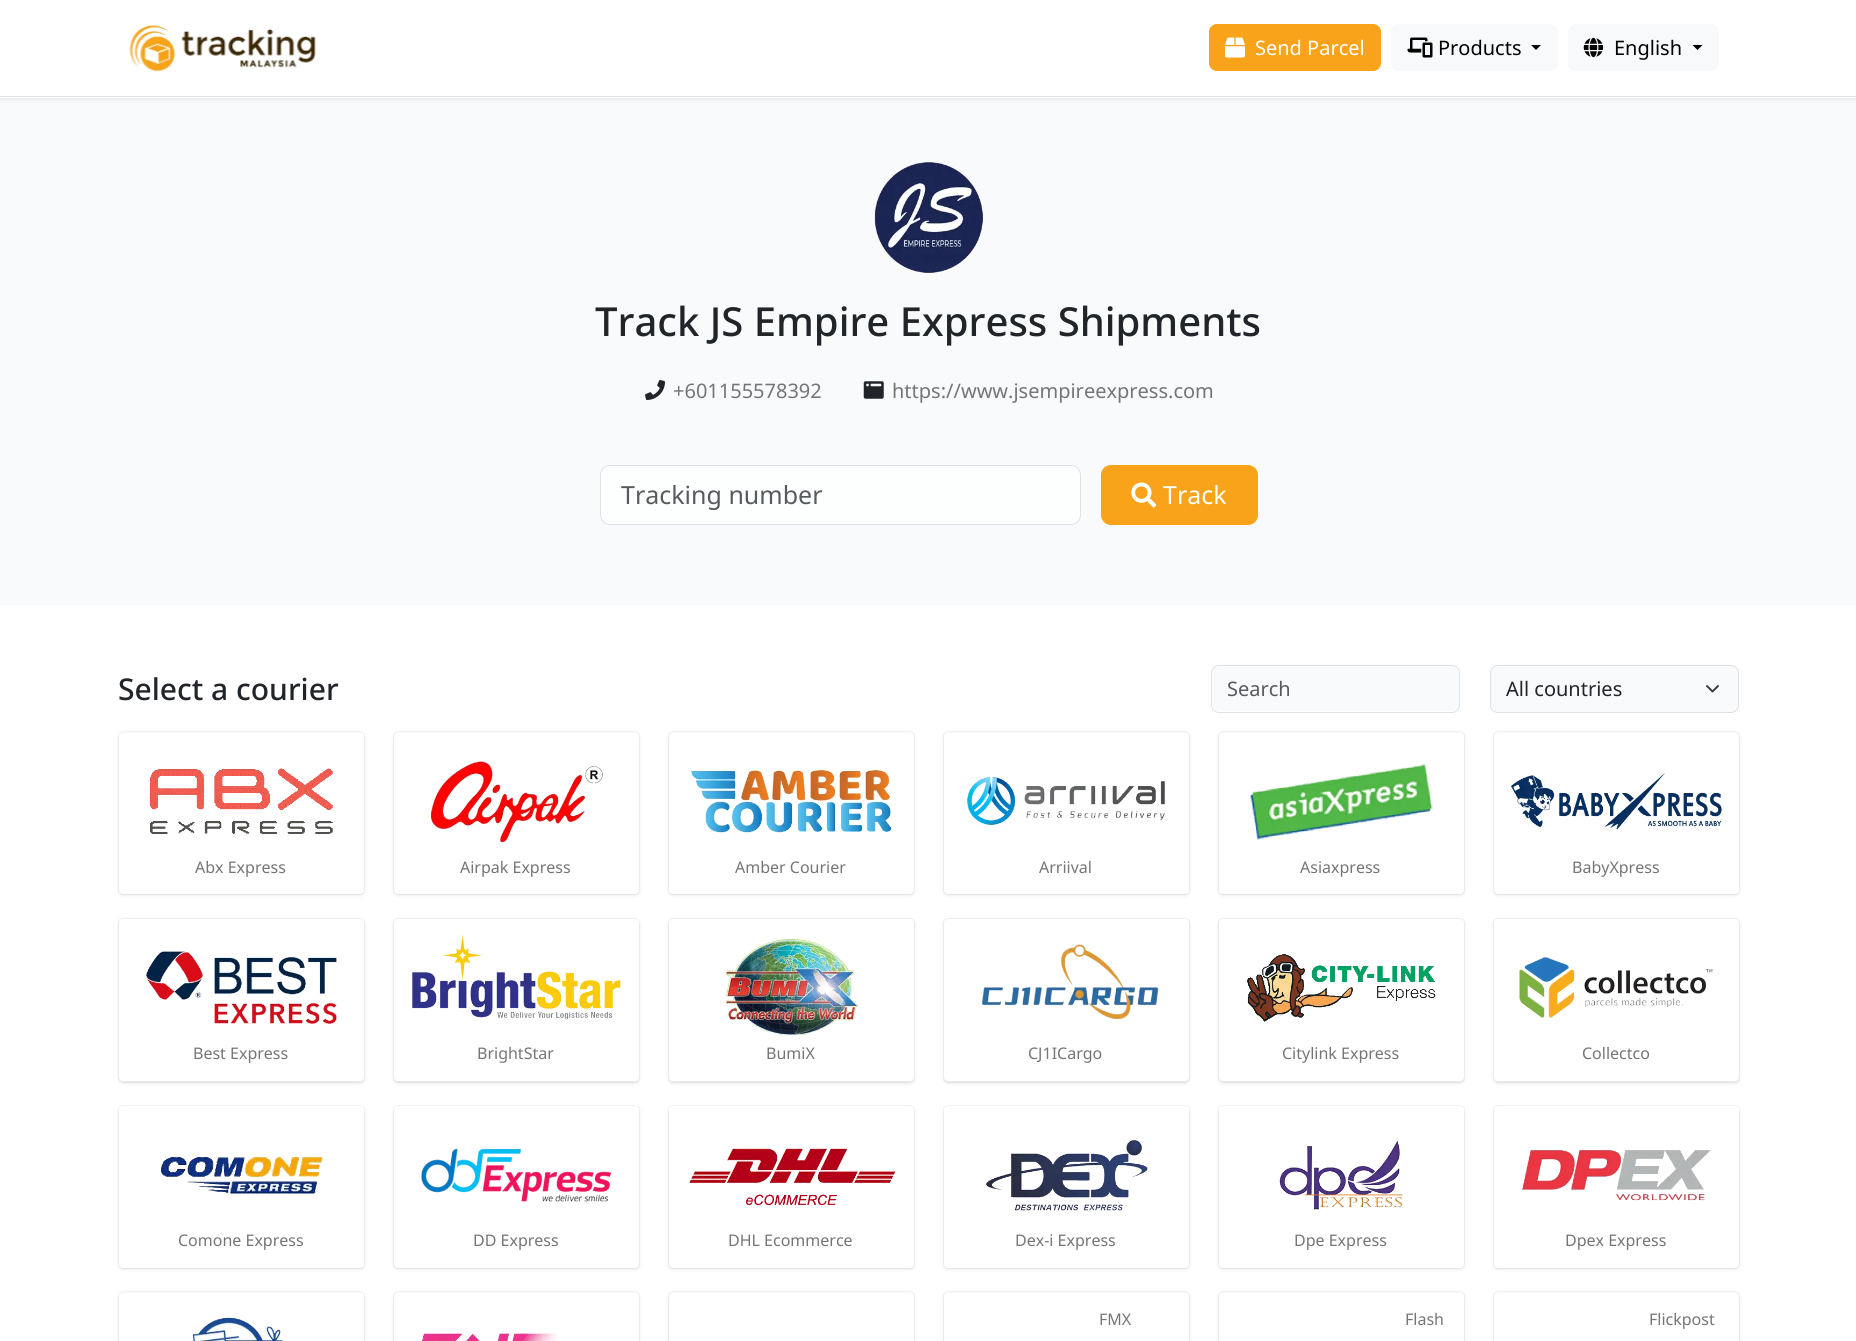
#include <cairo/cairo.h>
#include <math.h>
#include <stddef.h>

typedef struct { double x, y; const char *s; } line_t;
static cairo_t *cr;

static void rgb(unsigned color)
{
	cairo_set_source_rgb(cr, (color >> 16) / 255.0, (color >> 8 & 255) / 255.0, (color & 255) / 255.0);
}

static void rrect(double x, double y, double w, double h, double r)
{
	cairo_new_sub_path(cr);
	cairo_arc(cr, x + w - r, y + h - r, r, 0, M_PI / 2);
	cairo_arc(cr, x + r, y + h - r, r, M_PI / 2, M_PI);
	cairo_arc(cr, x + r, y + r, r, M_PI, 1.5 * M_PI);
	cairo_arc(cr, x + w - r, y + r, r, 1.5 * M_PI, 2 * M_PI);
	cairo_close_path(cr);
}

static void soft_shadow(double x, double y, double w, double h, double r, double blur, double alpha)
{
	cairo_push_group_with_content(cr, CAIRO_CONTENT_ALPHA);
	cairo_set_operator(cr, CAIRO_OPERATOR_SOURCE);
	for (int i = 15; i >= -15 && fmin(w, h) + blur * i / 3 > 0; i -= 2) {
		double e = blur * i / 6;
		cairo_set_source_rgba(cr, 0, 0, 0, alpha * erfc((i - 1) / 8.5) / 2);
		rrect(x - e, y - e, w + 2 * e, h + 2 * e, fmax(0, fmin(r + e + blur * .6, fmin(w, h) / 2 + e)));
		cairo_fill(cr);
	}
	cairo_pattern_t *soft = cairo_pop_group(cr);
	cairo_mask(cr, soft);
	cairo_pattern_destroy(soft);
}

static void image(const char *path, double x, double y, double w, double h)
{
	cairo_surface_t *image = cairo_image_surface_create_from_png(path);
	cairo_save(cr);
	cairo_set_source_surface(cr, image, x, y);
	cairo_rectangle(cr, x, y, w, h);
	cairo_fill(cr);
	cairo_restore(cr);
	cairo_surface_destroy(image);
}

int main(void) {
	cairo_surface_t *surface = cairo_image_surface_create(CAIRO_FORMAT_RGB24, 1856, 1341);
	cr = cairo_create(surface);
	cairo_font_options_t *options = cairo_font_options_create();
	cairo_font_options_set_hint_metrics(options, CAIRO_HINT_METRICS_OFF);
	cairo_font_options_set_hint_style(options, CAIRO_HINT_STYLE_NONE);
	cairo_set_font_options(cr, options);
	cairo_set_miter_limit(cr, 4);
	rgb(0xf9fafb);
	cairo_paint(cr);
	rgb(0x000000);
	soft_shadow(0, 3, 1856, 97, 0, 2.5, 0.07);
	rgb(0xffffff);
	cairo_rectangle(cr, 0, 0, 1856, 98);
	cairo_fill(cr);
	rgb(0xdee2e6);
	cairo_rectangle(cr, 0, 96, 1856, 1);
	cairo_fill(cr);
	image("img/1.png", 129, 25, 187, 47);
	rgb(0xf9a31b);
	rrect(1209.5, 24.5, 171, 46, 7.5);
	cairo_fill_preserve(cr);
	cairo_set_line_width(cr, 1);
	cairo_stroke(cr);
	image("img/2.png", 1225, 37, 20, 21);
	rgb(0xf8f9fa);
	rrect(1391, 24, 167, 47, 8);
	cairo_fill(cr);
	image("img/3.png", 1407, 37, 26, 21);
	rgb(0x000000);
	cairo_new_path(cr);
	cairo_move_to(cr, 1531, 45);
	cairo_line_to(cr, 1541, 45);
	cairo_line_to(cr, 1536, 50);
	cairo_close_path(cr);
	cairo_fill(cr);
	rgb(0xf8f9fa);
	rrect(1568, 24, 151, 47, 8);
	cairo_fill(cr);
	image("img/4.png", 1583, 37, 21, 21);
	rgb(0x000000);
	cairo_new_path(cr);
	cairo_move_to(cr, 1692.5, 45);
	cairo_line_to(cr, 1702.5, 45);
	cairo_line_to(cr, 1697.5, 50);
	cairo_close_path(cr);
	cairo_fill(cr);
	image("img/5.png", 874, 162, 109, 111);
	image("img/6.png", 645, 380, 20, 20);
	image("img/7.png", 863, 381, 21, 18);
	rgb(0xfdfefe);
	rrect(600.5, 465.5, 480, 59, 9.5);
	cairo_fill_preserve(cr);
	rgb(0xdee2e6);
	cairo_stroke(cr);
	rgb(0xf9a31b);
	rrect(1101.5, 465.5, 156, 59, 9.5);
	cairo_fill_preserve(cr);
	cairo_stroke(cr);
	image("img/8.png", 1131, 482, 26, 26);
	rgb(0xffffff);
	cairo_rectangle(cr, 0, 605, 1856, 736);
	cairo_fill(cr);
	rgb(0xf9fafb);
	rrect(1213, 666, 246, 45, 6);
	cairo_fill(cr);
	rrect(1211.5, 665.5, 248, 47, 7.5);
	rgb(0xdee2e6);
	cairo_stroke(cr);
	rgb(0xf9fafb);
	rrect(1490, 665, 249, 48, 8);
	cairo_fill(cr);
	cairo_new_path(cr);
	cairo_move_to(cr, 1707, 686);
	cairo_line_to(cr, 1712.5, 691.5);
	cairo_line_to(cr, 1718, 686);
	rgb(0x343a40);
	cairo_set_line_width(cr, 1.9);
	cairo_set_line_cap(cr, CAIRO_LINE_CAP_ROUND);
	cairo_set_line_join(cr, CAIRO_LINE_JOIN_ROUND);
	cairo_stroke(cr);
	rrect(1490.5, 665.5, 248, 47, 7.5);
	rgb(0xdee2e6);
	cairo_set_line_width(cr, 1);
	cairo_set_line_cap(cr, CAIRO_LINE_CAP_BUTT);
	cairo_set_line_join(cr, CAIRO_LINE_JOIN_MITER);
	cairo_stroke(cr);
	rrect(118.5, 731.5, 246, 163, 4.5);
	rgb(0xf5f5f6);
	cairo_stroke(cr);
	rgb(0x3f3f44);
	soft_shadow(119, 734, 245, 161, 4, 2, 0.15);
	rgb(0xffffff);
	rrect(119, 733, 245, 161, 4);
	cairo_fill(cr);
	image("img/9.png", 150, 768, 183, 66);
	rrect(393.5, 731.5, 246, 163, 4.5);
	rgb(0xf5f5f6);
	cairo_stroke(cr);
	rgb(0x3f3f44);
	soft_shadow(394, 734, 245, 161, 4, 2, 0.15);
	rgb(0xffffff);
	rrect(394, 733, 245, 161, 4);
	cairo_fill(cr);
	image("img/10.png", 431, 761, 172, 81);
	rrect(668.5, 731.5, 246, 163, 4.5);
	rgb(0xf5f5f6);
	cairo_stroke(cr);
	rgb(0x3f3f44);
	soft_shadow(669, 734, 245, 161, 4, 2, 0.15);
	rgb(0xffffff);
	rrect(669, 733, 245, 161, 4);
	cairo_fill(cr);
	image("img/11.png", 691, 770, 201, 63);
	rrect(943.5, 731.5, 246, 163, 4.5);
	rgb(0xf5f5f6);
	cairo_stroke(cr);
	rgb(0x3f3f44);
	soft_shadow(944, 734, 245, 161, 4, 2, 0.15);
	rgb(0xffffff);
	rrect(944, 733, 245, 161, 4);
	cairo_fill(cr);
	image("img/12.png", 967, 777, 198, 48);
	rrect(1218.5, 731.5, 246, 163, 4.5);
	rgb(0xf5f5f6);
	cairo_stroke(cr);
	rgb(0x3f3f44);
	soft_shadow(1219, 734, 245, 161, 4, 2, 0.15);
	rgb(0xffffff);
	rrect(1219, 733, 245, 161, 4);
	cairo_fill(cr);
	image("img/13.png", 1250, 764, 183, 76);
	rrect(1493.5, 731.5, 246, 163, 4.5);
	rgb(0xf5f5f6);
	cairo_stroke(cr);
	rgb(0x3f3f44);
	soft_shadow(1494, 734, 245, 161, 4, 2, 0.15);
	rgb(0xffffff);
	rrect(1494, 733, 245, 161, 4);
	cairo_fill(cr);
	image("img/14.png", 1511, 773, 211, 56);
	rrect(118.5, 918.5, 246, 164, 4.5);
	rgb(0xf5f5f6);
	cairo_stroke(cr);
	rgb(0x3f3f44);
	soft_shadow(119, 920, 245, 163, 4, 2, 0.15);
	rgb(0xffffff);
	rrect(119, 919, 245, 162, 4);
	cairo_fill(cr);
	image("img/15.png", 145, 951, 192, 73);
	rrect(393.5, 918.5, 246, 164, 4.5);
	rgb(0xf5f5f6);
	cairo_stroke(cr);
	rgb(0x3f3f44);
	soft_shadow(394, 920, 245, 163, 4, 2, 0.15);
	rgb(0xffffff);
	rrect(394, 919, 245, 162, 4);
	cairo_fill(cr);
	image("img/16.png", 412, 934, 209, 86);
	rrect(668.5, 918.5, 246, 164, 4.5);
	rgb(0xf5f5f6);
	cairo_stroke(cr);
	rgb(0x3f3f44);
	soft_shadow(669, 920, 245, 163, 4, 2, 0.15);
	rgb(0xffffff);
	rrect(669, 919, 245, 162, 4);
	cairo_fill(cr);
	image("img/17.png", 724, 939, 134, 97);
	rrect(943.5, 918.5, 246, 164, 4.5);
	rgb(0xf5f5f6);
	cairo_stroke(cr);
	rgb(0x3f3f44);
	soft_shadow(944, 920, 245, 163, 4, 2, 0.15);
	rgb(0xffffff);
	rrect(944, 919, 245, 162, 4);
	cairo_fill(cr);
	image("img/18.png", 982, 944, 177, 76);
	rrect(1218.5, 918.5, 246, 164, 4.5);
	rgb(0xf5f5f6);
	cairo_stroke(cr);
	rgb(0x3f3f44);
	soft_shadow(1219, 920, 245, 163, 4, 2, 0.15);
	rgb(0xffffff);
	rrect(1219, 919, 245, 162, 4);
	cairo_fill(cr);
	image("img/19.png", 1247, 954, 189, 68);
	rrect(1493.5, 918.5, 246, 164, 4.5);
	rgb(0xf5f5f6);
	cairo_stroke(cr);
	rgb(0x3f3f44);
	soft_shadow(1494, 920, 245, 163, 4, 2, 0.15);
	rgb(0xffffff);
	rrect(1494, 919, 245, 162, 4);
	cairo_fill(cr);
	image("img/20.png", 1519, 957, 194, 61);
	rrect(118.5, 1105.5, 246, 163, 4.5);
	rgb(0xf5f5f6);
	cairo_stroke(cr);
	rgb(0x3f3f44);
	soft_shadow(119, 1108, 245, 161, 4, 2, 0.15);
	rgb(0xffffff);
	rrect(119, 1106, 245, 162, 4);
	cairo_fill(cr);
	image("img/21.png", 161, 1156, 162, 38);
	rrect(393.5, 1105.5, 246, 163, 4.5);
	rgb(0xf5f5f6);
	cairo_stroke(cr);
	rgb(0x3f3f44);
	soft_shadow(394, 1108, 245, 161, 4, 2, 0.15);
	rgb(0xffffff);
	rrect(394, 1106, 245, 162, 4);
	cairo_fill(cr);
	image("img/22.png", 420, 1148, 192, 54);
	rrect(668.5, 1105.5, 246, 163, 4.5);
	rgb(0xf5f5f6);
	cairo_stroke(cr);
	rgb(0x3f3f44);
	soft_shadow(669, 1108, 245, 161, 4, 2, 0.15);
	rgb(0xffffff);
	rrect(669, 1106, 245, 162, 4);
	cairo_fill(cr);
	image("img/23.png", 689, 1148, 207, 57);
	rrect(943.5, 1105.5, 246, 163, 4.5);
	rgb(0xf5f5f6);
	cairo_stroke(cr);
	rgb(0x3f3f44);
	soft_shadow(944, 1108, 245, 161, 4, 2, 0.15);
	rgb(0xffffff);
	rrect(944, 1106, 245, 162, 4);
	cairo_fill(cr);
	image("img/24.png", 986, 1140, 162, 71);
	rrect(1218.5, 1105.5, 246, 163, 4.5);
	rgb(0xf5f5f6);
	cairo_stroke(cr);
	rgb(0x3f3f44);
	soft_shadow(1219, 1108, 245, 161, 4, 2, 0.15);
	rgb(0xffffff);
	rrect(1219, 1106, 245, 162, 4);
	cairo_fill(cr);
	image("img/25.png", 1279, 1141, 124, 69);
	rrect(1493.5, 1105.5, 246, 163, 4.5);
	rgb(0xf5f5f6);
	cairo_stroke(cr);
	rgb(0x3f3f44);
	soft_shadow(1494, 1108, 245, 161, 4, 2, 0.15);
	rgb(0xffffff);
	rrect(1494, 1106, 245, 162, 4);
	cairo_fill(cr);
	image("img/26.png", 1522, 1150, 189, 51);
	rrect(118.5, 1291.5, 246, 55, 4.5);
	rgb(0xf5f5f6);
	cairo_stroke(cr);
	rgb(0x3f3f44);
	soft_shadow(119, 1294, 245, 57, 4, 2, 0.15);
	rgb(0xffffff);
	rrect(119, 1293, 245, 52, 4);
	cairo_fill(cr);
	image("img/27.png", 192, 1317, 91, 24);
	rrect(393.5, 1291.5, 246, 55, 4.5);
	rgb(0xf5f5f6);
	cairo_stroke(cr);
	rgb(0x3f3f44);
	soft_shadow(394, 1294, 245, 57, 4, 2, 0.15);
	rgb(0xffffff);
	rrect(394, 1293, 245, 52, 4);
	cairo_fill(cr);
	image("img/28.png", 421, 1333, 137, 8);
	rrect(668.5, 1291.5, 246, 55, 4.5);
	rgb(0xf5f5f6);
	cairo_stroke(cr);
	rgb(0x3f3f44);
	soft_shadow(669, 1294, 245, 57, 4, 2, 0.15);
	rgb(0xffffff);
	rrect(669, 1293, 245, 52, 4);
	cairo_fill(cr);
	rrect(943.5, 1291.5, 246, 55, 4.5);
	rgb(0xf5f5f6);
	cairo_stroke(cr);
	rgb(0x3f3f44);
	soft_shadow(944, 1294, 245, 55, 4, 2, 0.15);
	rgb(0xffffff);
	rrect(944, 1293, 245, 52, 4);
	cairo_fill(cr);
	rrect(1218.5, 1291.5, 246, 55, 4.5);
	rgb(0xf5f5f6);
	cairo_stroke(cr);
	rgb(0x3f3f44);
	soft_shadow(1219, 1294, 245, 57, 4, 2, 0.15);
	rgb(0xffffff);
	rrect(1219, 1293, 245, 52, 4);
	cairo_fill(cr);
	rrect(1493.5, 1291.5, 246, 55, 4.5);
	rgb(0xf5f5f6);
	cairo_stroke(cr);
	rgb(0x3f3f44);
	soft_shadow(1494, 1294, 245, 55, 4, 2, 0.15);
	rgb(0xffffff);
	rrect(1494, 1293, 245, 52, 4);
	cairo_fill(cr);
	cairo_select_font_face(cr, "Noto Sans", CAIRO_FONT_SLANT_NORMAL, CAIRO_FONT_WEIGHT_NORMAL);
	cairo_set_font_size(cr, 20);
	cairo_move_to(cr, 1255, 55);
	cairo_show_text(cr, "Send Parcel");
	rgb(0x000000);
	cairo_move_to(cr, 1438, 55);
	cairo_show_text(cr, "Products");
	cairo_move_to(cr, 1614, 55);
	cairo_show_text(cr, "English");
	cairo_select_font_face(cr, "Noto Sans Medium", CAIRO_FONT_SLANT_NORMAL, CAIRO_FONT_WEIGHT_NORMAL);
	cairo_set_font_size(cr, 40);
	rgb(0x212529);
	cairo_move_to(cr, 595, 336);
	cairo_show_text(cr, "Track JS Empire Express Shipments");
	cairo_select_font_face(cr, "Noto Sans", CAIRO_FONT_SLANT_NORMAL, CAIRO_FONT_WEIGHT_NORMAL);
	cairo_set_font_size(cr, 20);
	rgb(0x757575);
	cairo_move_to(cr, 673, 398);
	cairo_show_text(cr, "+601155578392");
	cairo_move_to(cr, 892, 398);
	cairo_show_text(cr, "https://www.jsempireexpress.com");
	cairo_set_font_size(cr, 25);
	rgb(0x585b5e);
	cairo_move_to(cr, 621, 504);
	cairo_show_text(cr, "Tracking number");
	rgb(0xffffff);
	cairo_move_to(cr, 1163, 504);
	cairo_show_text(cr, "Track");
	cairo_select_font_face(cr, "Noto Sans Medium", CAIRO_FONT_SLANT_NORMAL, CAIRO_FONT_WEIGHT_NORMAL);
	cairo_set_font_size(cr, 30);
	rgb(0x212529);
	cairo_move_to(cr, 118, 700);
	cairo_show_text(cr, "Select a courier");
	cairo_select_font_face(cr, "Noto Sans", CAIRO_FONT_SLANT_NORMAL, CAIRO_FONT_WEIGHT_NORMAL);
	cairo_set_font_size(cr, 20);
	rgb(0x585b5e);
	cairo_move_to(cr, 1227, 696);
	cairo_show_text(cr, "Search");
	rgb(0x212529);
	cairo_move_to(cr, 1506, 696);
	cairo_show_text(cr, "All countries");
	cairo_set_font_size(cr, 16);
	rgb(0x757575);
	{
		static const line_t items[] = {
			{195, 873, "Abx Express"},
			{460, 873, "Airpak Express"},
			{735, 873, "Amber Courier"},
			{1039, 873, "Arriival"},
			{1300, 873, "Asiaxpress"},
			{1572, 873, "BabyXpress"},
			{193, 1059, "Best Express"},
			{477, 1059, "BrightStar"},
			{766, 1059, "BumiX"},
			{1028, 1059, "CJ1ICargo"},
			{1282, 1059, "Citylink Express"},
			{1582, 1059, "Collectco"},
			{178, 1246, "Comone Express"},
			{473, 1246, "DD Express"},
			{728, 1246, "DHL Ecommerce"},
			{1015, 1246, "Dex-i Express"},
			{1294, 1246, "Dpe Express"},
			{1565, 1246, "Dpex Express"},
			{1099, 1325, "FMX"},
			{1405, 1325, "Flash"},
			{1649, 1325, "Flickpost"},
		};
		for (size_t i = 0; i < sizeof items / sizeof *items; i++) {
			cairo_move_to(cr, items[i].x, items[i].y);
			cairo_show_text(cr, items[i].s);
		}
	}
	cairo_surface_write_to_png(surface, "page.png");
	cairo_font_options_destroy(options);
	cairo_destroy(cr);
	cairo_surface_destroy(surface);
	return 0;
}
